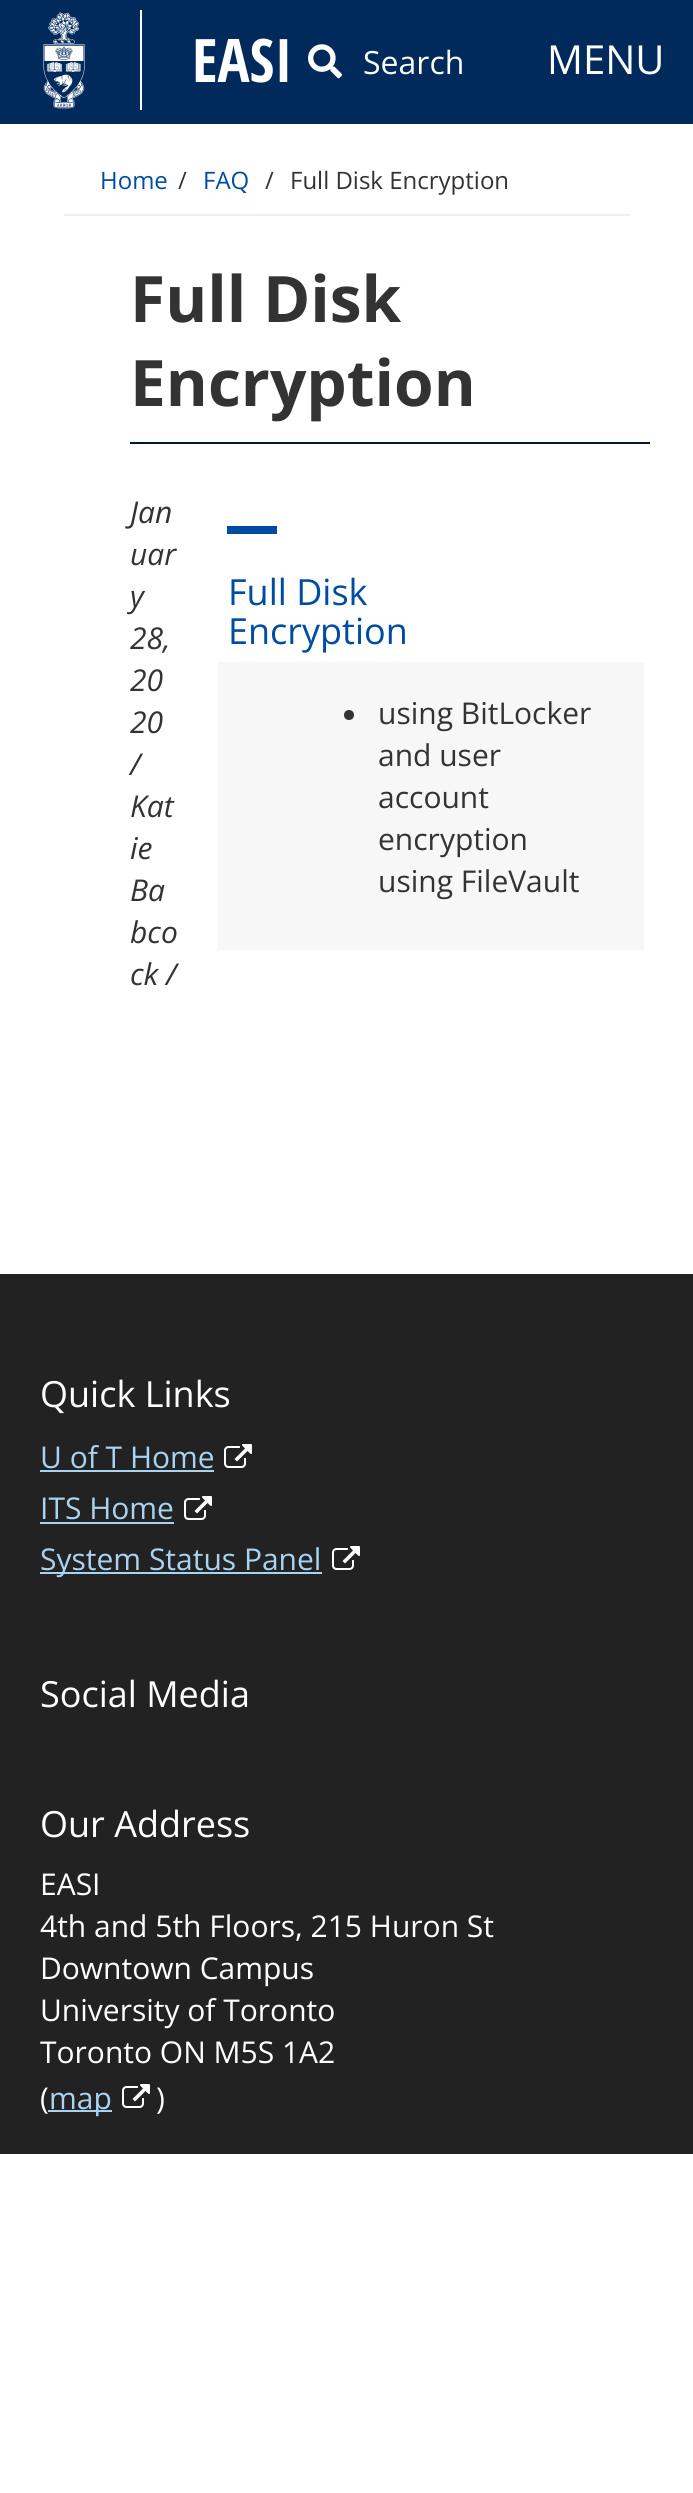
#include <cairo/cairo.h>
#include <math.h>
#include <stddef.h>

typedef struct { double x, y; const char *s; } line_t;
typedef struct { double x, y, w, h; unsigned color; } box_t;
static cairo_t *cr;

static void rgb(unsigned color)
{
	cairo_set_source_rgb(cr, (color >> 16) / 255.0, (color >> 8 & 255) / 255.0, (color & 255) / 255.0);
}

static void image(const char *path, double x, double y, double w, double h)
{
	cairo_surface_t *image = cairo_image_surface_create_from_png(path);
	cairo_save(cr);
	cairo_set_source_surface(cr, image, x, y);
	cairo_rectangle(cr, x, y, w, h);
	cairo_fill(cr);
	cairo_restore(cr);
	cairo_surface_destroy(image);
}

int main(void) {
	cairo_surface_t *surface = cairo_image_surface_create(CAIRO_FORMAT_RGB24, 693, 2493);
	cr = cairo_create(surface);
	cairo_font_options_t *options = cairo_font_options_create();
	cairo_font_options_set_hint_metrics(options, CAIRO_HINT_METRICS_OFF);
	cairo_font_options_set_hint_style(options, CAIRO_HINT_STYLE_NONE);
	cairo_set_font_options(cr, options);
	cairo_set_miter_limit(cr, 4);
	rgb(0xffffff);
	cairo_paint(cr);
	rgb(0x002a5c);
	cairo_rectangle(cr, 0, 0, 693, 124);
	cairo_fill(cr);
	image("img/1.png", 43, 12, 42, 97);
	rgb(0xffffff);
	cairo_rectangle(cr, 140, 10, 2, 100);
	cairo_fill(cr);
	image("img/2.png", 308, 44, 34, 35);
	{
		static const box_t items[] = {
			{64, 214, 566, 2, 0xeeeeee},
			{130, 442, 520, 2, 0x001937},
			{227, 526, 50, 8, 0x004ba3},
			{218, 662, 426, 288, 0xf7f7f7},
		};
		for (size_t i = 0; i < sizeof items / sizeof *items; i++) {
			rgb(items[i].color);
			cairo_rectangle(cr, items[i].x, items[i].y, items[i].w, items[i].h);
			cairo_fill(cr);
		}
	}
	rgb(0x333333);
	cairo_arc(cr, 349, 715, 5, 0, 2 * M_PI);
	cairo_fill(cr);
	rgb(0x222222);
	cairo_rectangle(cr, 0, 1274, 693, 880);
	cairo_fill(cr);
	rgb(0xa9d4f1);
	cairo_rectangle(cr, 40, 1470, 174, 2);
	cairo_fill(cr);
	image("img/3.png", 224, 1444, 28, 24);
	cairo_rectangle(cr, 40, 1522, 134, 2);
	cairo_fill(cr);
	image("img/3.png", 184, 1496, 28, 24);
	cairo_rectangle(cr, 40, 1572, 282, 2);
	cairo_fill(cr);
	image("img/3.png", 332, 1546, 28, 24);
	cairo_rectangle(cr, 48, 2110, 64, 2);
	cairo_fill(cr);
	image("img/3.png", 122, 2084, 28, 24);
	cairo_select_font_face(cr, "Open Sans Condensed", CAIRO_FONT_SLANT_NORMAL, CAIRO_FONT_WEIGHT_BOLD);
	cairo_set_font_size(cr, 60);
	rgb(0xffffff);
	cairo_move_to(cr, 192, 82);
	cairo_show_text(cr, "EASI");
	cairo_select_font_face(cr, "Open Sans", CAIRO_FONT_SLANT_NORMAL, CAIRO_FONT_WEIGHT_NORMAL);
	cairo_set_font_size(cr, 32);
	cairo_move_to(cr, 363, 74);
	cairo_show_text(cr, "Search");
	cairo_set_font_size(cr, 40);
	cairo_move_to(cr, 547, 74);
	cairo_show_text(cr, "MENU");
	cairo_set_font_size(cr, 24);
	rgb(0x004ba3);
	cairo_move_to(cr, 100, 189);
	cairo_show_text(cr, "Home");
	rgb(0x333333);
	cairo_move_to(cr, 178, 189);
	cairo_show_text(cr, "/");
	rgb(0x004ba3);
	cairo_move_to(cr, 203, 189);
	cairo_show_text(cr, "FAQ");
	rgb(0x333333);
	cairo_move_to(cr, 265, 189);
	cairo_show_text(cr, "/");
	cairo_move_to(cr, 290, 189);
	cairo_show_text(cr, "Full Disk Encryption");
	cairo_select_font_face(cr, "Open Sans", CAIRO_FONT_SLANT_NORMAL, CAIRO_FONT_WEIGHT_BOLD);
	cairo_set_font_size(cr, 64);
	cairo_move_to(cr, 130, 322);
	cairo_show_text(cr, "Full Disk");
	cairo_move_to(cr, 130, 406);
	cairo_show_text(cr, "Encryption");
	cairo_select_font_face(cr, "Open Sans", CAIRO_FONT_SLANT_ITALIC, CAIRO_FONT_WEIGHT_NORMAL);
	cairo_set_font_size(cr, 30);
	{
		static const line_t items[] = {
			{130, 523, "Jan"},
			{130, 565, "uar"},
			{130, 607, "y"},
			{130, 649, "28,"},
			{130, 691, "20"},
			{130, 733, "20"},
			{130, 775, "/"},
			{130, 817, "Kat"},
			{130, 859, "ie"},
			{130, 901, "Ba"},
			{130, 943, "bco"},
			{130, 985, "ck /"},
		};
		for (size_t i = 0; i < sizeof items / sizeof *items; i++) {
			cairo_move_to(cr, items[i].x, items[i].y);
			cairo_show_text(cr, items[i].s);
		}
	}
	cairo_select_font_face(cr, "Open Sans", CAIRO_FONT_SLANT_NORMAL, CAIRO_FONT_WEIGHT_NORMAL);
	cairo_set_font_size(cr, 36);
	rgb(0x004ba3);
	cairo_move_to(cr, 228, 605);
	cairo_show_text(cr, "Full Disk");
	cairo_move_to(cr, 228, 644);
	cairo_show_text(cr, "Encryption");
	cairo_set_font_size(cr, 30);
	rgb(0x333333);
	{
		static const line_t items[] = {
			{378, 724, "using BitLocker"},
			{378, 766, "and user"},
			{378, 808, "account"},
			{378, 850, "encryption"},
			{378, 892, "using FileVault"},
		};
		for (size_t i = 0; i < sizeof items / sizeof *items; i++) {
			cairo_move_to(cr, items[i].x, items[i].y);
			cairo_show_text(cr, items[i].s);
		}
	}
	cairo_set_font_size(cr, 36);
	rgb(0xffffff);
	cairo_move_to(cr, 40, 1407);
	cairo_show_text(cr, "Quick Links");
	cairo_set_font_size(cr, 30);
	rgb(0xa9d4f1);
	{
		static const line_t items[] = {
			{40, 1468, "U of T Home"},
			{40, 1519, "ITS Home"},
			{40, 1570, "System Status Panel"},
		};
		for (size_t i = 0; i < sizeof items / sizeof *items; i++) {
			cairo_move_to(cr, items[i].x, items[i].y);
			cairo_show_text(cr, items[i].s);
		}
	}
	cairo_set_font_size(cr, 36);
	rgb(0xffffff);
	cairo_move_to(cr, 40, 1707);
	cairo_show_text(cr, "Social Media");
	cairo_move_to(cr, 40, 1837);
	cairo_show_text(cr, "Our Address");
	cairo_set_font_size(cr, 30);
	{
		static const line_t items[] = {
			{40, 1895, "EASI"},
			{40, 1937, "4th and 5th Floors, 215 Huron St"},
			{40, 1979, "Downtown Campus"},
			{40, 2021, "University of Toronto"},
			{40, 2063, "Toronto ON M5S 1A2"},
			{40, 2109, "("},
		};
		for (size_t i = 0; i < sizeof items / sizeof *items; i++) {
			cairo_move_to(cr, items[i].x, items[i].y);
			cairo_show_text(cr, items[i].s);
		}
	}
	rgb(0xa9d4f1);
	cairo_move_to(cr, 49, 2109);
	cairo_show_text(cr, "map");
	rgb(0xffffff);
	cairo_move_to(cr, 156, 2109);
	cairo_show_text(cr, ")");
	cairo_surface_write_to_png(surface, "page.png");
	cairo_font_options_destroy(options);
	cairo_destroy(cr);
	cairo_surface_destroy(surface);
	return 0;
}
